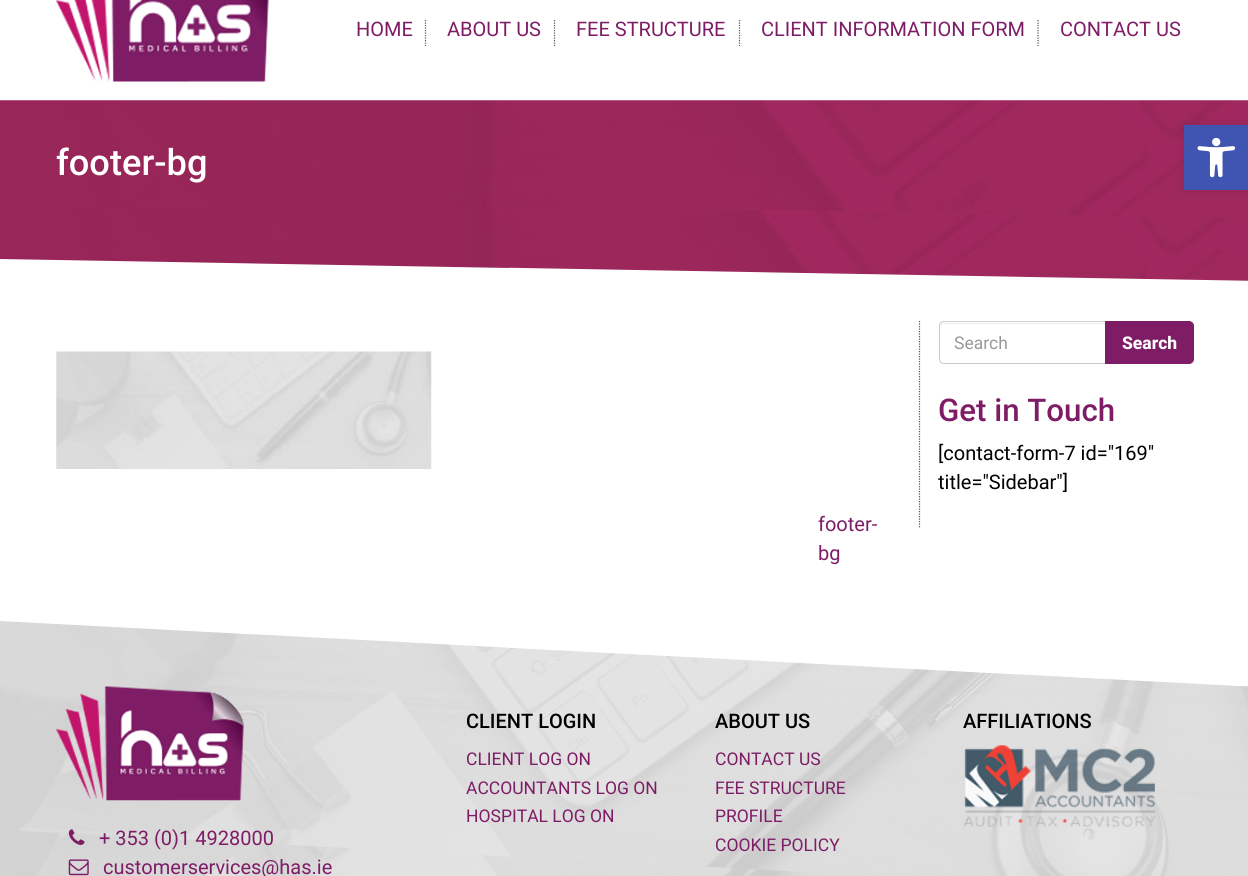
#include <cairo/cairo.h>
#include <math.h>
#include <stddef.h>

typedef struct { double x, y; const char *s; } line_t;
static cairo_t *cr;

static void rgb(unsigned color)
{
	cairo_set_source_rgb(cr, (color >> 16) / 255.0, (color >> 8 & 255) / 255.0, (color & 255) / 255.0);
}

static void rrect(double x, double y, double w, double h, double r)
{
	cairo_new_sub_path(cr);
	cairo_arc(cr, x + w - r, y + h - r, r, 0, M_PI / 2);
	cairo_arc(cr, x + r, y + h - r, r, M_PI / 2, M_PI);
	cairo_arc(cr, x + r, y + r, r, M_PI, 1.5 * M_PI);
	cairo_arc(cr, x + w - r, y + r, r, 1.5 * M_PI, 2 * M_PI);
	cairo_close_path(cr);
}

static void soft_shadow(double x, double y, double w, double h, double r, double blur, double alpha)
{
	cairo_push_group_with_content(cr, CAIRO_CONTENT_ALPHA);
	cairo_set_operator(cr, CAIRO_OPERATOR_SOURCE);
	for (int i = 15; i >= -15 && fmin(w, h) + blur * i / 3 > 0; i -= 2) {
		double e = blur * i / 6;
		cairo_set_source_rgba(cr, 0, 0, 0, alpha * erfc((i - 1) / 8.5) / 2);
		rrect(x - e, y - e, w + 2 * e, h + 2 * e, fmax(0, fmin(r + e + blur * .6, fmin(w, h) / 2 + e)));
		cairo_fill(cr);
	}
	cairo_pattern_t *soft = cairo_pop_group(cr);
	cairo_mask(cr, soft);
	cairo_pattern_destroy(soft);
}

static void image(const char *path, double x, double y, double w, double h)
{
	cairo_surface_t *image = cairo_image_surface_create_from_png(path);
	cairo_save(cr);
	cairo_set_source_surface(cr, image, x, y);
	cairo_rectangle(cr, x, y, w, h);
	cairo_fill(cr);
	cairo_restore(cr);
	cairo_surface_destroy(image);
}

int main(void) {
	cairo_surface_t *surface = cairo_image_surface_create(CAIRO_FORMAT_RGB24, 1248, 876);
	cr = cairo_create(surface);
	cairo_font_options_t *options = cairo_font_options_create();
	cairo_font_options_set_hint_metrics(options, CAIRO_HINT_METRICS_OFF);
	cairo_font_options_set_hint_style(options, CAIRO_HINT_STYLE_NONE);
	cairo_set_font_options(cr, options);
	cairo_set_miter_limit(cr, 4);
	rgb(0xffffff);
	cairo_paint(cr);
	image("img/1.png", 56, 0, 213, 82);
	cairo_new_path(cr);
	cairo_move_to(cr, 425.5, 20);
	cairo_line_to(cr, 425.5, 46);
	rgb(0x5a5555);
	cairo_set_line_width(cr, 1.2);
	cairo_set_dash(cr, (double[]){1.25, 1.25}, 2, 0);
	cairo_stroke(cr);
	cairo_new_path(cr);
	cairo_move_to(cr, 554.5, 20);
	cairo_line_to(cr, 554.5, 46);
	cairo_stroke(cr);
	cairo_new_path(cr);
	cairo_move_to(cr, 739.5, 20);
	cairo_line_to(cr, 739.5, 46);
	cairo_stroke(cr);
	cairo_new_path(cr);
	cairo_move_to(cr, 1038, 20);
	cairo_line_to(cr, 1038, 46);
	cairo_stroke(cr);
	image("img/2.png", 0, 100, 1248, 159);
	image("img/3.png", 1, 210, 1247, 71);
	cairo_new_path(cr);
	cairo_move_to(cr, 919.5, 321);
	cairo_line_to(cr, 919.5, 527.5);
	cairo_stroke(cr);
	rgb(0xececec);
	cairo_new_path(cr);
	cairo_move_to(cr, 944, 324);
	cairo_line_to(cr, 1105, 324);
	cairo_line_to(cr, 1105, 323);
	cairo_line_to(cr, 944, 323);
	cairo_curve_to(cr, 941, 323, 940, 325, 940, 328);
	cairo_curve_to(cr, 940, 325, 942, 324, 944, 324);
	cairo_close_path(cr);
	cairo_fill(cr);
	cairo_new_path(cr);
	cairo_move_to(cr, 944, 321.5);
	cairo_line_to(cr, 1105.5, 321.5);
	cairo_line_to(cr, 1105.5, 363.5);
	cairo_line_to(cr, 944, 363.5);
	cairo_curve_to(cr, 941.5, 363.5, 939.5, 361.5, 939.5, 359);
	cairo_line_to(cr, 939.5, 326);
	cairo_curve_to(cr, 939.5, 323.5, 941.5, 321.5, 944, 321.5);
	cairo_close_path(cr);
	rgb(0xcccccc);
	cairo_set_line_width(cr, 1);
	cairo_set_dash(cr, NULL, 0, 0);
	cairo_stroke(cr);
	rgb(0x7e1d66);
	cairo_new_path(cr);
	cairo_move_to(cr, 1105.5, 321.5);
	cairo_line_to(cr, 1189, 321.5);
	cairo_curve_to(cr, 1191.5, 321.5, 1193.5, 323.5, 1193.5, 326);
	cairo_line_to(cr, 1193.5, 359);
	cairo_curve_to(cr, 1193.5, 361.5, 1191.5, 363.5, 1189, 363.5);
	cairo_line_to(cr, 1105.5, 363.5);
	cairo_close_path(cr);
	cairo_fill_preserve(cr);
	cairo_stroke(cr);
	image("img/4.png", 56, 351, 376, 118);
	image("img/5.png", 0, 686, 1248, 190);
	image("img/6.png", 0, 621, 1248, 255);
	image("img/7.png", 56, 686, 188, 115);
	image("img/8.png", 68, 829, 17, 16);
	image("img/9.png", 68, 859, 21, 17);
	image("img/10.png", 963, 745, 192, 82);
	rgb(0x000000);
	soft_shadow(1184, 125, 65, 65, 0, 6, 0.1);
	rgb(0x4054b2);
	cairo_rectangle(cr, 1184, 125, 64, 65);
	cairo_fill(cr);
	image("img/11.png", 1197, 138, 38, 40);
	cairo_select_font_face(cr, "Roboto", CAIRO_FONT_SLANT_NORMAL, CAIRO_FONT_WEIGHT_NORMAL);
	cairo_set_font_size(cr, 20);
	rgb(0x7e1d66);
	{
		static const line_t items[] = {
			{356, 36, "HOME"},
			{447, 36, "ABOUT US"},
			{576, 36, "FEE STRUCTURE"},
			{761, 36, "CLIENT INFORMATION FORM"},
			{1060, 36, "CONTACT US"},
		};
		for (size_t i = 0; i < sizeof items / sizeof *items; i++) {
			cairo_move_to(cr, items[i].x, items[i].y);
			cairo_show_text(cr, items[i].s);
		}
	}
	cairo_select_font_face(cr, "Roboto Medium", CAIRO_FONT_SLANT_NORMAL, CAIRO_FONT_WEIGHT_NORMAL);
	cairo_set_font_size(cr, 36.25);
	rgb(0xffffff);
	cairo_move_to(cr, 56, 175);
	cairo_show_text(cr, "footer-bg");
	cairo_select_font_face(cr, "Roboto", CAIRO_FONT_SLANT_NORMAL, CAIRO_FONT_WEIGHT_NORMAL);
	cairo_set_font_size(cr, 17.5);
	rgb(0x999999);
	cairo_move_to(cr, 954, 349);
	cairo_show_text(cr, "Search");
	cairo_select_font_face(cr, "Roboto ExtraBold", CAIRO_FONT_SLANT_NORMAL, CAIRO_FONT_WEIGHT_NORMAL);
	rgb(0xffffff);
	cairo_move_to(cr, 1122, 349);
	cairo_show_text(cr, "Search");
	cairo_select_font_face(cr, "Roboto Medium", CAIRO_FONT_SLANT_NORMAL, CAIRO_FONT_WEIGHT_NORMAL);
	cairo_set_font_size(cr, 31.25);
	rgb(0x7e1d66);
	cairo_move_to(cr, 938, 421);
	cairo_show_text(cr, "Get in Touch");
	cairo_select_font_face(cr, "Roboto", CAIRO_FONT_SLANT_NORMAL, CAIRO_FONT_WEIGHT_NORMAL);
	cairo_set_font_size(cr, 20);
	rgb(0x000000);
	cairo_move_to(cr, 938, 460);
	cairo_show_text(cr, "[contact-form-7 id=\"169\"");
	cairo_move_to(cr, 938, 489);
	cairo_show_text(cr, "title=\"Sidebar\"]");
	rgb(0x7e1d66);
	{
		static const line_t items[] = {
			{818, 531, "footer-"},
			{818, 560, "bg"},
			{99, 845, "+ 353 (0)1 4928000"},
			{103, 874, "customerservices@has.ie"},
		};
		for (size_t i = 0; i < sizeof items / sizeof *items; i++) {
			cairo_move_to(cr, items[i].x, items[i].y);
			cairo_show_text(cr, items[i].s);
		}
	}
	cairo_select_font_face(cr, "Roboto Medium", CAIRO_FONT_SLANT_NORMAL, CAIRO_FONT_WEIGHT_NORMAL);
	rgb(0x000000);
	cairo_move_to(cr, 466, 728);
	cairo_show_text(cr, "CLIENT LOGIN");
	cairo_select_font_face(cr, "Roboto", CAIRO_FONT_SLANT_NORMAL, CAIRO_FONT_WEIGHT_NORMAL);
	cairo_set_font_size(cr, 17.5);
	rgb(0x7e1d66);
	{
		static const line_t items[] = {
			{466, 765, "CLIENT LOG ON"},
			{466, 794, "ACCOUNTANTS LOG ON"},
			{466, 822, "HOSPITAL LOG ON"},
		};
		for (size_t i = 0; i < sizeof items / sizeof *items; i++) {
			cairo_move_to(cr, items[i].x, items[i].y);
			cairo_show_text(cr, items[i].s);
		}
	}
	cairo_select_font_face(cr, "Roboto Medium", CAIRO_FONT_SLANT_NORMAL, CAIRO_FONT_WEIGHT_NORMAL);
	cairo_set_font_size(cr, 20);
	rgb(0x000000);
	cairo_move_to(cr, 715, 728);
	cairo_show_text(cr, "ABOUT US");
	cairo_select_font_face(cr, "Roboto", CAIRO_FONT_SLANT_NORMAL, CAIRO_FONT_WEIGHT_NORMAL);
	cairo_set_font_size(cr, 17.5);
	rgb(0x7e1d66);
	{
		static const line_t items[] = {
			{715, 765, "CONTACT US"},
			{715, 794, "FEE STRUCTURE"},
			{715, 822, "PROFILE"},
			{715, 851, "COOKIE POLICY"},
		};
		for (size_t i = 0; i < sizeof items / sizeof *items; i++) {
			cairo_move_to(cr, items[i].x, items[i].y);
			cairo_show_text(cr, items[i].s);
		}
	}
	cairo_select_font_face(cr, "Roboto Medium", CAIRO_FONT_SLANT_NORMAL, CAIRO_FONT_WEIGHT_NORMAL);
	cairo_set_font_size(cr, 20);
	rgb(0x000000);
	cairo_move_to(cr, 963, 728);
	cairo_show_text(cr, "AFFILIATIONS");
	cairo_surface_write_to_png(surface, "page.png");
	cairo_font_options_destroy(options);
	cairo_destroy(cr);
	cairo_surface_destroy(surface);
	return 0;
}
